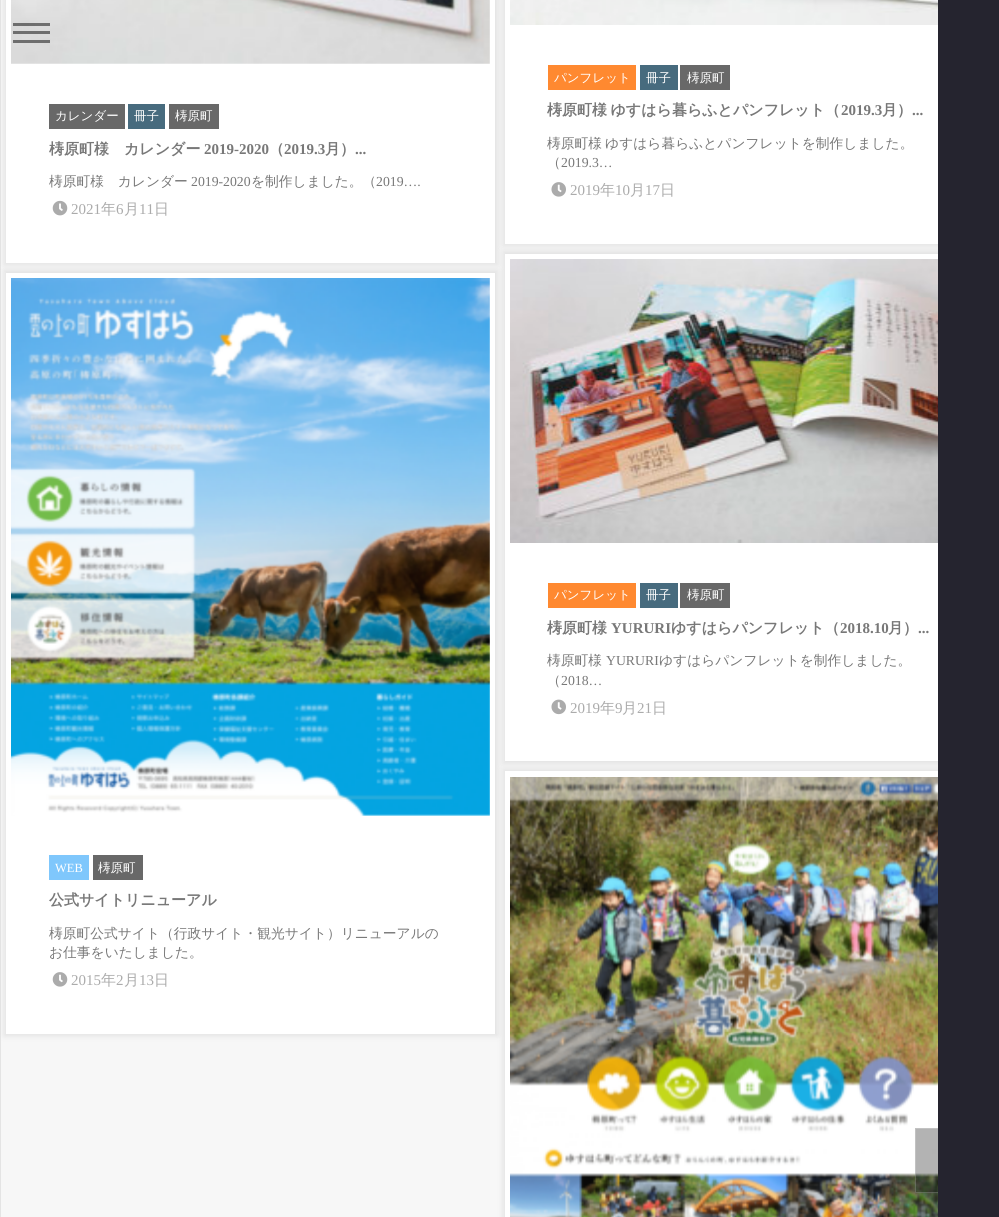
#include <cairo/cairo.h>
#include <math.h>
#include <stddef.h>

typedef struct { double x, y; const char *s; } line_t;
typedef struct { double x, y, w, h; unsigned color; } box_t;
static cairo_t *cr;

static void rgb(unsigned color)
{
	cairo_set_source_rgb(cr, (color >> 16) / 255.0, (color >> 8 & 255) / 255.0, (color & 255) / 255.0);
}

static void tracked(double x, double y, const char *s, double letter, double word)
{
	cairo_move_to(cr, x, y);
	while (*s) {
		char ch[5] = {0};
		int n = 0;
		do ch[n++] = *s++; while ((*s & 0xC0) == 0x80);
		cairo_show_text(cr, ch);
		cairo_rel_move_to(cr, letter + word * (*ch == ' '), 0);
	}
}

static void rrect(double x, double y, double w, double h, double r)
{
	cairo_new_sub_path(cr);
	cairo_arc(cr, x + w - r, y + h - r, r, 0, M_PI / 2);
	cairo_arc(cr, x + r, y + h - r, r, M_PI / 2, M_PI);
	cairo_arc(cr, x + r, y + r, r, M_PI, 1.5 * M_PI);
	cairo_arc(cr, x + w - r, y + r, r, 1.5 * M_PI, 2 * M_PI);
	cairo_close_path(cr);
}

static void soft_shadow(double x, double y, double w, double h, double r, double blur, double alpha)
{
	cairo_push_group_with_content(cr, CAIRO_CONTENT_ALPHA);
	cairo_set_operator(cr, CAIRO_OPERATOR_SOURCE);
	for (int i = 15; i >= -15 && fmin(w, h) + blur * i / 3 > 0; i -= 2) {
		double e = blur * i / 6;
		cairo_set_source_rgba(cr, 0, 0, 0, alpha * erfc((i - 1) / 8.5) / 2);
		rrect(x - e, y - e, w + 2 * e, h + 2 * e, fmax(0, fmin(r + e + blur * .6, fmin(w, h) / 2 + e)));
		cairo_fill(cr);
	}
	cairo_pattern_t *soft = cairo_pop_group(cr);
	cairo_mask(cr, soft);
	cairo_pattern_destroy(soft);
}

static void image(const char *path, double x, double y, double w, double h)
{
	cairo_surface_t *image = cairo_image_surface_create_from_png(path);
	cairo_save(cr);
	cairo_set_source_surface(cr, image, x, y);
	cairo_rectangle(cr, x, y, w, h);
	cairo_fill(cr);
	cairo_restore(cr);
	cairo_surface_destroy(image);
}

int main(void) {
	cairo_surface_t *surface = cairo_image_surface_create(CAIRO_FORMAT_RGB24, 999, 1217);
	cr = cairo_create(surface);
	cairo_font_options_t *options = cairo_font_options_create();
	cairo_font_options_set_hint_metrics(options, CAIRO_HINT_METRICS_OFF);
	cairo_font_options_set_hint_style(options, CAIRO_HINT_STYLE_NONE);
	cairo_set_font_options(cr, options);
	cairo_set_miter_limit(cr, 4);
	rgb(0xf7f7f7);
	cairo_paint(cr);
	cairo_rectangle(cr, 0.5, -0.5, 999, 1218);
	rgb(0xe4e4e4);
	cairo_set_line_width(cr, 1);
	cairo_stroke(cr);
	rgb(0xe2e2e2);
	soft_shadow(4, -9, 494, 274, 0, 3, 1);
	rgb(0xffffff);
	cairo_rectangle(cr, 6, 0, 489, 263);
	cairo_fill(cr);
	image("img/1.png", 11, 0, 479, 64);
	cairo_set_source_rgba(cr, 0.012, 0.012, 0.012, 0.5);
	cairo_rectangle(cr, 13, 23, 37, 3);
	cairo_fill(cr);
	rgb(0x6e6e6e);
	cairo_rectangle(cr, 13, 31, 37, 3);
	cairo_fill(cr);
	cairo_rectangle(cr, 13, 40, 37, 3);
	cairo_fill(cr);
	rgb(0x686868);
	cairo_rectangle(cr, 49, 104, 76, 25);
	cairo_fill(cr);
	rgb(0x476b7e);
	cairo_rectangle(cr, 128, 104, 37, 25);
	cairo_fill(cr);
	rgb(0x686868);
	cairo_rectangle(cr, 169, 104, 50, 25);
	cairo_fill(cr);
	image("img/2.png", 52, 200, 16, 16);
	rgb(0xe2e2e2);
	soft_shadow(503, -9, 493, 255, 0, 3, 1);
	rgb(0xffffff);
	cairo_rectangle(cr, 505, 0, 433, 244);
	cairo_fill(cr);
	image("img/3.png", 510, 0, 428, 25);
	{
		static const box_t items[] = {
			{548, 65, 88, 25, 0xff8930},
			{640, 65, 38, 25, 0x476b7e},
			{680, 65, 50, 25, 0x686868},
		};
		for (size_t i = 0; i < sizeof items / sizeof *items; i++) {
			rgb(items[i].color);
			cairo_rectangle(cr, items[i].x, items[i].y, items[i].w, items[i].h);
			cairo_fill(cr);
		}
	}
	image("img/4.png", 551, 182, 15, 15);
	rgb(0xe2e2e2);
	soft_shadow(503, 251, 493, 513, 0, 3, 1);
	rgb(0xffffff);
	cairo_rectangle(cr, 505, 254, 433, 507);
	cairo_fill(cr);
	image("img/5.png", 510, 259, 428, 284);
	{
		static const box_t items[] = {
			{548, 583, 88, 25, 0xff8930},
			{640, 583, 38, 25, 0x476b7e},
			{680, 583, 50, 25, 0x686868},
		};
		for (size_t i = 0; i < sizeof items / sizeof *items; i++) {
			rgb(items[i].color);
			cairo_rectangle(cr, items[i].x, items[i].y, items[i].w, items[i].h);
			cairo_fill(cr);
		}
	}
	image("img/6.png", 551, 699, 15, 16);
	rgb(0xe2e2e2);
	soft_shadow(4, 270, 494, 766, 0, 3, 1);
	rgb(0xffffff);
	cairo_rectangle(cr, 6, 273, 489, 761);
	cairo_fill(cr);
	image("img/7.png", 11, 278, 479, 538);
	rgb(0x7fc7fc);
	cairo_rectangle(cr, 49, 855, 40, 25);
	cairo_fill(cr);
	rgb(0x686868);
	cairo_rectangle(cr, 93, 855, 50, 25);
	cairo_fill(cr);
	image("img/8.png", 52, 972, 16, 15);
	rgb(0xe2e2e2);
	soft_shadow(503, 769, 493, 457, 0, 3, 1);
	rgb(0xffffff);
	cairo_rectangle(cr, 505, 771, 433, 446);
	cairo_fill(cr);
	image("img/9.png", 510, 777, 428, 440);
	cairo_set_source_rgba(cr, 0.012, 0.012, 0.012, 0.3);
	cairo_rectangle(cr, 915, 1128, 23, 65);
	cairo_fill(cr);
	cairo_rectangle(cr, 915.5, 1128.5, 64, 64);
	cairo_set_source_rgba(cr, 1, 1, 1, 0.2);
	cairo_stroke(cr);
	rgb(0x25242f);
	cairo_rectangle(cr, 938, 0, 61, 1217);
	cairo_fill(cr);
	cairo_select_font_face(cr, "WenQuanYi Zen Hei Medium", CAIRO_FONT_SLANT_NORMAL, CAIRO_FONT_WEIGHT_NORMAL);
	cairo_set_font_size(cr, 12.5);
	rgb(0xffffff);
	{
		static const line_t items[] = {
			{55, 120, "カレンダー"},
			{134, 120, "冊子"},
			{175, 120, "梼原町"},
		};
		for (size_t i = 0; i < sizeof items / sizeof *items; i++) {
			cairo_move_to(cr, items[i].x, items[i].y);
			cairo_show_text(cr, items[i].s);
		}
	}
	cairo_select_font_face(cr, "WenQuanYi Zen Hei", CAIRO_FONT_SLANT_NORMAL, CAIRO_FONT_WEIGHT_BOLD);
	cairo_set_font_size(cr, 15);
	rgb(0x787878);
	cairo_move_to(cr, 49, 154);
	cairo_show_text(cr, "梼原町様　カレンダー");
	cairo_select_font_face(cr, "Liberation Serif", CAIRO_FONT_SLANT_NORMAL, CAIRO_FONT_WEIGHT_BOLD);
	cairo_move_to(cr, 204, 154);
	cairo_show_text(cr, "2019-2020");
	cairo_select_font_face(cr, "WenQuanYi Zen Hei", CAIRO_FONT_SLANT_NORMAL, CAIRO_FONT_WEIGHT_BOLD);
	cairo_move_to(cr, 269, 154);
	cairo_show_text(cr, "（");
	cairo_select_font_face(cr, "Liberation Serif", CAIRO_FONT_SLANT_NORMAL, CAIRO_FONT_WEIGHT_BOLD);
	cairo_move_to(cr, 284, 154);
	cairo_show_text(cr, "2019.3");
	cairo_select_font_face(cr, "WenQuanYi Zen Hei", CAIRO_FONT_SLANT_NORMAL, CAIRO_FONT_WEIGHT_BOLD);
	cairo_move_to(cr, 325, 154);
	cairo_show_text(cr, "月）");
	cairo_select_font_face(cr, "Liberation Serif", CAIRO_FONT_SLANT_NORMAL, CAIRO_FONT_WEIGHT_BOLD);
	cairo_move_to(cr, 355, 154);
	cairo_show_text(cr, "...");
	cairo_select_font_face(cr, "WenQuanYi Zen Hei Medium", CAIRO_FONT_SLANT_NORMAL, CAIRO_FONT_WEIGHT_NORMAL);
	cairo_set_font_size(cr, 13.75);
	cairo_move_to(cr, 49, 186);
	cairo_show_text(cr, "梼原町様　カレンダー");
	cairo_select_font_face(cr, "Liberation Serif", CAIRO_FONT_SLANT_NORMAL, CAIRO_FONT_WEIGHT_NORMAL);
	cairo_move_to(cr, 191, 186);
	cairo_show_text(cr, "2019-2020");
	cairo_select_font_face(cr, "WenQuanYi Zen Hei Medium", CAIRO_FONT_SLANT_NORMAL, CAIRO_FONT_WEIGHT_NORMAL);
	cairo_move_to(cr, 251, 186);
	cairo_show_text(cr, "を制作しました。（");
	cairo_select_font_face(cr, "Liberation Serif", CAIRO_FONT_SLANT_NORMAL, CAIRO_FONT_WEIGHT_NORMAL);
	cairo_move_to(cr, 376, 186);
	cairo_show_text(cr, "2019….");
	cairo_set_font_size(cr, 15);
	rgb(0xababab);
	cairo_move_to(cr, 71, 214);
	cairo_show_text(cr, "2021");
	cairo_select_font_face(cr, "WenQuanYi Zen Hei Medium", CAIRO_FONT_SLANT_NORMAL, CAIRO_FONT_WEIGHT_NORMAL);
	cairo_move_to(cr, 101, 214);
	cairo_show_text(cr, "年");
	cairo_select_font_face(cr, "Liberation Serif", CAIRO_FONT_SLANT_NORMAL, CAIRO_FONT_WEIGHT_NORMAL);
	cairo_move_to(cr, 116, 214);
	cairo_show_text(cr, "6");
	cairo_select_font_face(cr, "WenQuanYi Zen Hei Medium", CAIRO_FONT_SLANT_NORMAL, CAIRO_FONT_WEIGHT_NORMAL);
	cairo_move_to(cr, 124, 214);
	cairo_show_text(cr, "月");
	cairo_select_font_face(cr, "Liberation Serif", CAIRO_FONT_SLANT_NORMAL, CAIRO_FONT_WEIGHT_NORMAL);
	cairo_move_to(cr, 139, 214);
	cairo_show_text(cr, "11");
	cairo_select_font_face(cr, "WenQuanYi Zen Hei Medium", CAIRO_FONT_SLANT_NORMAL, CAIRO_FONT_WEIGHT_NORMAL);
	cairo_move_to(cr, 154, 214);
	cairo_show_text(cr, "日");
	cairo_set_font_size(cr, 12.5);
	rgb(0xffffff);
	{
		static const line_t items[] = {
			{554, 82, "パンフレット"},
			{646, 82, "冊子"},
			{687, 82, "梼原町"},
		};
		for (size_t i = 0; i < sizeof items / sizeof *items; i++) {
			cairo_move_to(cr, items[i].x, items[i].y);
			cairo_show_text(cr, items[i].s);
		}
	}
	cairo_select_font_face(cr, "WenQuanYi Zen Hei", CAIRO_FONT_SLANT_NORMAL, CAIRO_FONT_WEIGHT_BOLD);
	cairo_set_font_size(cr, 15);
	rgb(0x787878);
	tracked(547, 115, "梼原町様 ゆすはら暮らふとパンフレット（", 0, -1);
	cairo_select_font_face(cr, "Liberation Serif", CAIRO_FONT_SLANT_NORMAL, CAIRO_FONT_WEIGHT_BOLD);
	cairo_move_to(cr, 841, 115);
	cairo_show_text(cr, "2019.3");
	cairo_select_font_face(cr, "WenQuanYi Zen Hei", CAIRO_FONT_SLANT_NORMAL, CAIRO_FONT_WEIGHT_BOLD);
	cairo_move_to(cr, 882, 115);
	cairo_show_text(cr, "月）");
	cairo_select_font_face(cr, "Liberation Serif", CAIRO_FONT_SLANT_NORMAL, CAIRO_FONT_WEIGHT_BOLD);
	cairo_move_to(cr, 912, 115);
	cairo_show_text(cr, "...");
	cairo_select_font_face(cr, "WenQuanYi Zen Hei Medium", CAIRO_FONT_SLANT_NORMAL, CAIRO_FONT_WEIGHT_NORMAL);
	cairo_set_font_size(cr, 13.75);
	tracked(547, 148, "梼原町様 ゆすはら暮らふとパンフレットを制作しました。", 0, -1);
	cairo_move_to(cr, 547, 167);
	cairo_show_text(cr, "（");
	cairo_select_font_face(cr, "Liberation Serif", CAIRO_FONT_SLANT_NORMAL, CAIRO_FONT_WEIGHT_NORMAL);
	cairo_move_to(cr, 561, 167);
	cairo_show_text(cr, "2019.3…");
	cairo_set_font_size(cr, 15);
	rgb(0xababab);
	cairo_move_to(cr, 570, 195);
	cairo_show_text(cr, "2019");
	cairo_select_font_face(cr, "WenQuanYi Zen Hei Medium", CAIRO_FONT_SLANT_NORMAL, CAIRO_FONT_WEIGHT_NORMAL);
	cairo_move_to(cr, 600, 195);
	cairo_show_text(cr, "年");
	cairo_select_font_face(cr, "Liberation Serif", CAIRO_FONT_SLANT_NORMAL, CAIRO_FONT_WEIGHT_NORMAL);
	cairo_move_to(cr, 615, 195);
	cairo_show_text(cr, "10");
	cairo_select_font_face(cr, "WenQuanYi Zen Hei Medium", CAIRO_FONT_SLANT_NORMAL, CAIRO_FONT_WEIGHT_NORMAL);
	cairo_move_to(cr, 630, 195);
	cairo_show_text(cr, "月");
	cairo_select_font_face(cr, "Liberation Serif", CAIRO_FONT_SLANT_NORMAL, CAIRO_FONT_WEIGHT_NORMAL);
	cairo_move_to(cr, 645, 195);
	cairo_show_text(cr, "17");
	cairo_select_font_face(cr, "WenQuanYi Zen Hei Medium", CAIRO_FONT_SLANT_NORMAL, CAIRO_FONT_WEIGHT_NORMAL);
	cairo_move_to(cr, 660, 195);
	cairo_show_text(cr, "日");
	cairo_set_font_size(cr, 12.5);
	rgb(0xffffff);
	{
		static const line_t items[] = {
			{554, 599, "パンフレット"},
			{646, 599, "冊子"},
			{687, 599, "梼原町"},
		};
		for (size_t i = 0; i < sizeof items / sizeof *items; i++) {
			cairo_move_to(cr, items[i].x, items[i].y);
			cairo_show_text(cr, items[i].s);
		}
	}
	cairo_select_font_face(cr, "WenQuanYi Zen Hei", CAIRO_FONT_SLANT_NORMAL, CAIRO_FONT_WEIGHT_BOLD);
	cairo_set_font_size(cr, 15);
	rgb(0x787878);
	cairo_move_to(cr, 547, 633);
	cairo_show_text(cr, "梼原町様");
	cairo_select_font_face(cr, "Liberation Serif", CAIRO_FONT_SLANT_NORMAL, CAIRO_FONT_WEIGHT_BOLD);
	cairo_move_to(cr, 611, 633);
	cairo_show_text(cr, "YURURI");
	cairo_select_font_face(cr, "WenQuanYi Zen Hei", CAIRO_FONT_SLANT_NORMAL, CAIRO_FONT_WEIGHT_BOLD);
	cairo_move_to(cr, 671, 633);
	cairo_show_text(cr, "ゆすはらパンフレット（");
	cairo_select_font_face(cr, "Liberation Serif", CAIRO_FONT_SLANT_NORMAL, CAIRO_FONT_WEIGHT_BOLD);
	cairo_move_to(cr, 840, 633);
	cairo_show_text(cr, "2018.10");
	cairo_select_font_face(cr, "WenQuanYi Zen Hei", CAIRO_FONT_SLANT_NORMAL, CAIRO_FONT_WEIGHT_BOLD);
	cairo_move_to(cr, 888, 633);
	cairo_show_text(cr, "月）");
	cairo_select_font_face(cr, "Liberation Serif", CAIRO_FONT_SLANT_NORMAL, CAIRO_FONT_WEIGHT_BOLD);
	cairo_move_to(cr, 918, 633);
	cairo_show_text(cr, "...");
	cairo_select_font_face(cr, "WenQuanYi Zen Hei Medium", CAIRO_FONT_SLANT_NORMAL, CAIRO_FONT_WEIGHT_NORMAL);
	cairo_set_font_size(cr, 13.75);
	cairo_move_to(cr, 547, 665);
	cairo_show_text(cr, "梼原町様");
	cairo_select_font_face(cr, "Liberation Serif", CAIRO_FONT_SLANT_NORMAL, CAIRO_FONT_WEIGHT_NORMAL);
	cairo_move_to(cr, 606, 665);
	cairo_show_text(cr, "YURURI");
	cairo_select_font_face(cr, "WenQuanYi Zen Hei Medium", CAIRO_FONT_SLANT_NORMAL, CAIRO_FONT_WEIGHT_NORMAL);
	cairo_move_to(cr, 659, 665);
	cairo_show_text(cr, "ゆすはらパンフレットを制作しました。");
	cairo_move_to(cr, 547, 685);
	cairo_show_text(cr, "（");
	cairo_select_font_face(cr, "Liberation Serif", CAIRO_FONT_SLANT_NORMAL, CAIRO_FONT_WEIGHT_NORMAL);
	cairo_move_to(cr, 561, 685);
	cairo_show_text(cr, "2018…");
	cairo_set_font_size(cr, 15);
	rgb(0xababab);
	cairo_move_to(cr, 570, 713);
	cairo_show_text(cr, "2019");
	cairo_select_font_face(cr, "WenQuanYi Zen Hei Medium", CAIRO_FONT_SLANT_NORMAL, CAIRO_FONT_WEIGHT_NORMAL);
	cairo_move_to(cr, 600, 713);
	cairo_show_text(cr, "年");
	cairo_select_font_face(cr, "Liberation Serif", CAIRO_FONT_SLANT_NORMAL, CAIRO_FONT_WEIGHT_NORMAL);
	cairo_move_to(cr, 615, 713);
	cairo_show_text(cr, "9");
	cairo_select_font_face(cr, "WenQuanYi Zen Hei Medium", CAIRO_FONT_SLANT_NORMAL, CAIRO_FONT_WEIGHT_NORMAL);
	cairo_move_to(cr, 622, 713);
	cairo_show_text(cr, "月");
	cairo_select_font_face(cr, "Liberation Serif", CAIRO_FONT_SLANT_NORMAL, CAIRO_FONT_WEIGHT_NORMAL);
	cairo_move_to(cr, 637, 713);
	cairo_show_text(cr, "21");
	cairo_select_font_face(cr, "WenQuanYi Zen Hei Medium", CAIRO_FONT_SLANT_NORMAL, CAIRO_FONT_WEIGHT_NORMAL);
	cairo_move_to(cr, 652, 713);
	cairo_show_text(cr, "日");
	cairo_select_font_face(cr, "Liberation Serif", CAIRO_FONT_SLANT_NORMAL, CAIRO_FONT_WEIGHT_NORMAL);
	cairo_set_font_size(cr, 12.5);
	rgb(0xffffff);
	cairo_move_to(cr, 55, 872);
	cairo_show_text(cr, "WEB");
	cairo_select_font_face(cr, "WenQuanYi Zen Hei Medium", CAIRO_FONT_SLANT_NORMAL, CAIRO_FONT_WEIGHT_NORMAL);
	cairo_move_to(cr, 98, 872);
	cairo_show_text(cr, "梼原町");
	cairo_select_font_face(cr, "WenQuanYi Zen Hei", CAIRO_FONT_SLANT_NORMAL, CAIRO_FONT_WEIGHT_BOLD);
	cairo_set_font_size(cr, 15);
	rgb(0x787878);
	cairo_move_to(cr, 49, 905);
	cairo_show_text(cr, "公式サイトリニューアル");
	cairo_select_font_face(cr, "WenQuanYi Zen Hei Medium", CAIRO_FONT_SLANT_NORMAL, CAIRO_FONT_WEIGHT_NORMAL);
	cairo_set_font_size(cr, 13.75);
	cairo_move_to(cr, 49, 938);
	cairo_show_text(cr, "梼原町公式サイト（行政サイト・観光サイト）リニューアルの");
	cairo_move_to(cr, 49, 957);
	cairo_show_text(cr, "お仕事をいたしました。");
	cairo_select_font_face(cr, "Liberation Serif", CAIRO_FONT_SLANT_NORMAL, CAIRO_FONT_WEIGHT_NORMAL);
	cairo_set_font_size(cr, 15);
	rgb(0xababab);
	cairo_move_to(cr, 71, 985);
	cairo_show_text(cr, "2015");
	cairo_select_font_face(cr, "WenQuanYi Zen Hei Medium", CAIRO_FONT_SLANT_NORMAL, CAIRO_FONT_WEIGHT_NORMAL);
	cairo_move_to(cr, 101, 985);
	cairo_show_text(cr, "年");
	cairo_select_font_face(cr, "Liberation Serif", CAIRO_FONT_SLANT_NORMAL, CAIRO_FONT_WEIGHT_NORMAL);
	cairo_move_to(cr, 116, 985);
	cairo_show_text(cr, "2");
	cairo_select_font_face(cr, "WenQuanYi Zen Hei Medium", CAIRO_FONT_SLANT_NORMAL, CAIRO_FONT_WEIGHT_NORMAL);
	cairo_move_to(cr, 124, 985);
	cairo_show_text(cr, "月");
	cairo_select_font_face(cr, "Liberation Serif", CAIRO_FONT_SLANT_NORMAL, CAIRO_FONT_WEIGHT_NORMAL);
	cairo_move_to(cr, 139, 985);
	cairo_show_text(cr, "13");
	cairo_select_font_face(cr, "WenQuanYi Zen Hei Medium", CAIRO_FONT_SLANT_NORMAL, CAIRO_FONT_WEIGHT_NORMAL);
	cairo_move_to(cr, 154, 985);
	cairo_show_text(cr, "日");
	cairo_surface_write_to_png(surface, "page.png");
	cairo_font_options_destroy(options);
	cairo_destroy(cr);
	cairo_surface_destroy(surface);
	return 0;
}
